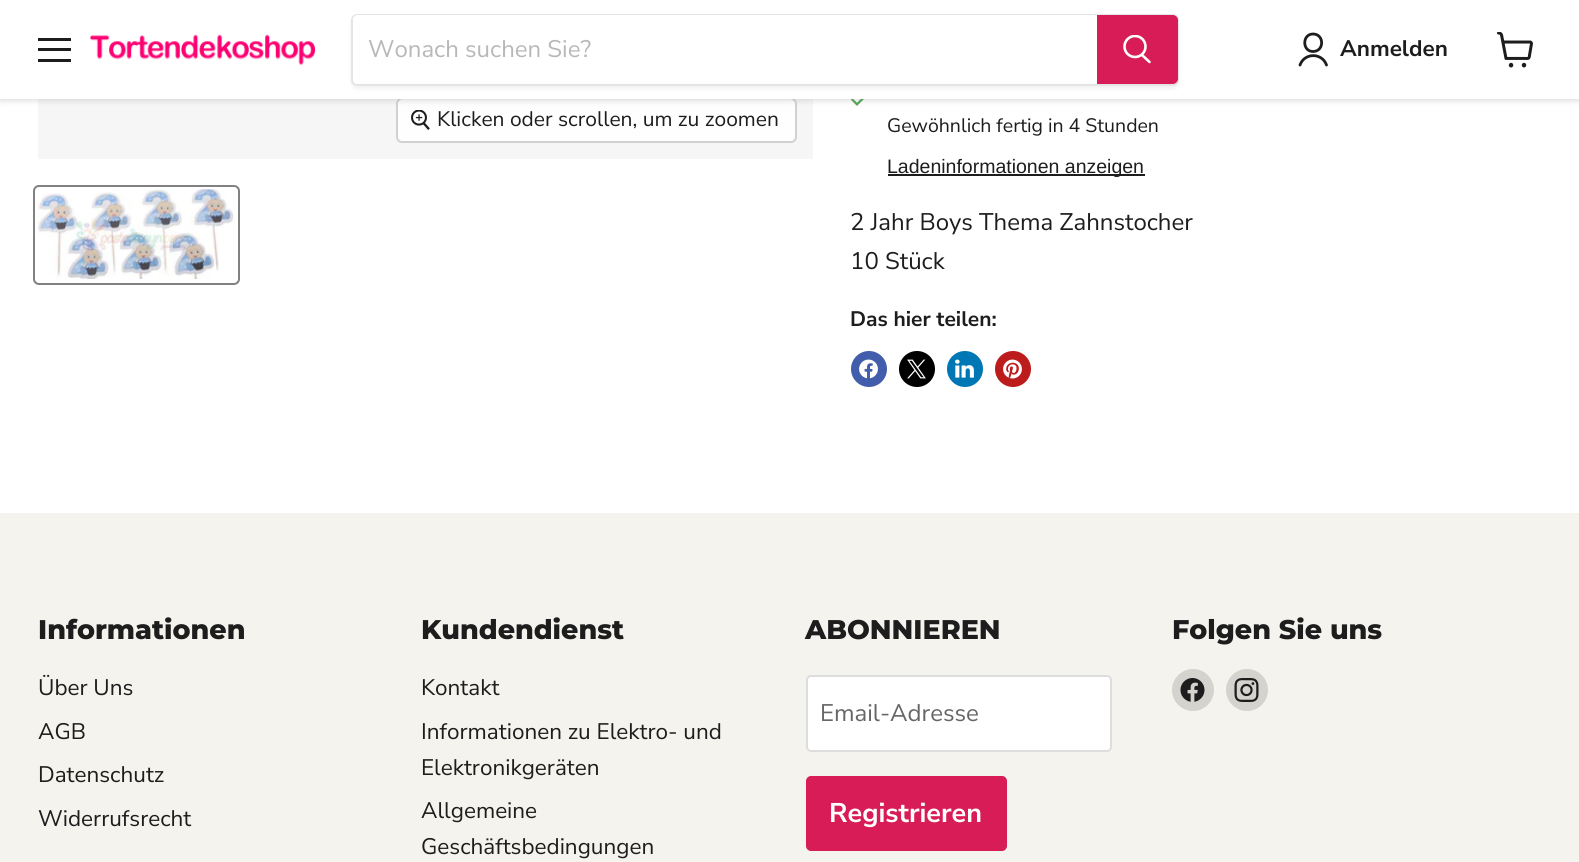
#include <cairo/cairo.h>
#include <math.h>
#include <stddef.h>

typedef struct { double x, y; const char *s; } line_t;
typedef struct { double x, y, w, h; unsigned color; } box_t;
static cairo_t *cr;

static void rgb(unsigned color)
{
	cairo_set_source_rgb(cr, (color >> 16) / 255.0, (color >> 8 & 255) / 255.0, (color & 255) / 255.0);
}

static void rrect(double x, double y, double w, double h, double r)
{
	cairo_new_sub_path(cr);
	cairo_arc(cr, x + w - r, y + h - r, r, 0, M_PI / 2);
	cairo_arc(cr, x + r, y + h - r, r, M_PI / 2, M_PI);
	cairo_arc(cr, x + r, y + r, r, M_PI, 1.5 * M_PI);
	cairo_arc(cr, x + w - r, y + r, r, 1.5 * M_PI, 2 * M_PI);
	cairo_close_path(cr);
}

static void soft_shadow(double x, double y, double w, double h, double r, double blur, double alpha)
{
	cairo_push_group_with_content(cr, CAIRO_CONTENT_ALPHA);
	cairo_set_operator(cr, CAIRO_OPERATOR_SOURCE);
	for (int i = 15; i >= -15 && fmin(w, h) + blur * i / 3 > 0; i -= 2) {
		double e = blur * i / 6;
		cairo_set_source_rgba(cr, 0, 0, 0, alpha * erfc((i - 1) / 8.5) / 2);
		rrect(x - e, y - e, w + 2 * e, h + 2 * e, fmax(0, fmin(r + e + blur * .6, fmin(w, h) / 2 + e)));
		cairo_fill(cr);
	}
	cairo_pattern_t *soft = cairo_pop_group(cr);
	cairo_mask(cr, soft);
	cairo_pattern_destroy(soft);
}

static void image(const char *path, double x, double y, double w, double h)
{
	cairo_surface_t *image = cairo_image_surface_create_from_png(path);
	cairo_save(cr);
	cairo_set_source_surface(cr, image, x, y);
	cairo_rectangle(cr, x, y, w, h);
	cairo_fill(cr);
	cairo_restore(cr);
	cairo_surface_destroy(image);
}

int main(void) {
	cairo_surface_t *surface = cairo_image_surface_create(CAIRO_FORMAT_RGB24, 1579, 862);
	cr = cairo_create(surface);
	cairo_font_options_t *options = cairo_font_options_create();
	cairo_font_options_set_hint_metrics(options, CAIRO_HINT_METRICS_OFF);
	cairo_font_options_set_hint_style(options, CAIRO_HINT_STYLE_NONE);
	cairo_set_font_options(cr, options);
	cairo_set_miter_limit(cr, 4);
	rgb(0xffffff);
	cairo_paint(cr);
	rgb(0xf6f6f6);
	cairo_rectangle(cr, 38, 99, 775, 60);
	cairo_fill(cr);
	rrect(397, 99, 399, 43, 5);
	rgb(0xd1d1d1);
	cairo_stroke(cr);
	cairo_set_source_rgba(cr, 1, 1, 1, 0.9);
	rrect(398, 99, 397, 42, 5);
	cairo_fill(cr);
	image("img/3.png", 411, 110, 19, 20);
	image("img/5.png", 851, 99, 13, 7);
	rgb(0x808080);
	soft_shadow(0, 2, 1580, 99, 0, 3, 0.25);
	{
		static const box_t items[] = {
			{0, 0, 1579, 99, 0xffffff},
			{38, 38, 33, 3, 0x1d1d1d},
			{38, 48, 33, 3, 0x1d1d1d},
			{38, 59, 33, 3, 0x1d1d1d},
		};
		for (size_t i = 0; i < sizeof items / sizeof *items; i++) {
			rgb(items[i].color);
			cairo_rectangle(cr, items[i].x, items[i].y, items[i].w, items[i].h);
			cairo_fill(cr);
		}
	}
	image("img/1.png", 90, 34, 225, 31);
	cairo_save(cr);
	cairo_set_fill_rule(cr, CAIRO_FILL_RULE_EVEN_ODD);
	cairo_new_path(cr);
	cairo_move_to(cr, 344, 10);
	cairo_line_to(cr, 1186, 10);
	cairo_line_to(cr, 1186, 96);
	cairo_line_to(cr, 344, 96);
	cairo_close_path(cr);
	cairo_move_to(cr, 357, 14);
	cairo_line_to(cr, 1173, 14);
	cairo_curve_to(cr, 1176.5, 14, 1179, 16.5, 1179, 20);
	cairo_line_to(cr, 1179, 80);
	cairo_curve_to(cr, 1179, 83.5, 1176.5, 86, 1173, 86);
	cairo_line_to(cr, 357, 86);
	cairo_curve_to(cr, 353.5, 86, 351, 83.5, 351, 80);
	cairo_line_to(cr, 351, 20);
	cairo_curve_to(cr, 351, 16.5, 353.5, 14, 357, 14);
	cairo_close_path(cr);
	cairo_clip(cr);
	rgb(0x808080);
	soft_shadow(351, 17, 828, 72, 6, 2, 0.11);
	cairo_restore(cr);
	rrect(352, 15, 826, 70, 5);
	cairo_set_source_rgba(cr, 0.502, 0.502, 0.502, 0.2);
	cairo_stroke(cr);
	rgb(0xffffff);
	cairo_new_path(cr);
	cairo_move_to(cr, 358, 15);
	cairo_line_to(cr, 1097, 15);
	cairo_line_to(cr, 1097, 84);
	cairo_line_to(cr, 358, 84);
	cairo_curve_to(cr, 355, 84, 353, 82, 353, 79);
	cairo_line_to(cr, 353, 20);
	cairo_curve_to(cr, 353, 17, 355, 15, 358, 15);
	cairo_close_path(cr);
	cairo_fill(cr);
	rgb(0xd71c57);
	cairo_new_path(cr);
	cairo_move_to(cr, 1098, 16);
	cairo_line_to(cr, 1173, 16);
	cairo_curve_to(cr, 1175, 16, 1177, 18, 1177, 20);
	cairo_line_to(cr, 1177, 79);
	cairo_curve_to(cr, 1177, 81, 1175, 83, 1173, 83);
	cairo_line_to(cr, 1098, 83);
	cairo_close_path(cr);
	cairo_fill_preserve(cr);
	cairo_stroke(cr);
	cairo_new_path(cr);
	cairo_move_to(cr, 1149.5, 62);
	cairo_line_to(cr, 1142, 55);
	rgb(0xffffff);
	cairo_set_line_width(cr, 2.6);
	cairo_set_line_cap(cr, CAIRO_LINE_CAP_ROUND);
	cairo_stroke(cr);
	cairo_save(cr);
	cairo_rectangle(cr, 1122, 35, 30, 31);
	cairo_clip(cr);
	cairo_arc(cr, 1135, 46.5, 10.5, 0, 2 * M_PI);
	cairo_set_line_cap(cr, CAIRO_LINE_CAP_BUTT);
	cairo_stroke(cr);
	cairo_restore(cr);
	cairo_new_path(cr);
	cairo_move_to(cr, 1313, 51.5);
	cairo_curve_to(cr, 1324.5, 51.5, 1324.5, 34, 1313, 34);
	cairo_curve_to(cr, 1302, 34, 1302, 51.5, 1313, 51.5);
	cairo_close_path(cr);
	cairo_move_to(cr, 1326.5, 65);
	cairo_curve_to(cr, 1322, 52.5, 1304.5, 52.5, 1300, 65);
	rgb(0x1d1d1d);
	cairo_set_line_width(cr, 2.8);
	cairo_set_line_join(cr, CAIRO_LINE_JOIN_ROUND);
	cairo_stroke(cr);
	image("img/2.png", 1497, 32, 36, 36);
	rrect(34, 186, 205, 98, 5);
	rgb(0x818181);
	cairo_set_line_width(cr, 2);
	cairo_set_line_cap(cr, CAIRO_LINE_CAP_BUTT);
	cairo_set_line_join(cr, CAIRO_LINE_JOIN_MITER);
	cairo_stroke(cr);
	image("img/4.png", 37, 189, 197, 90);
	rgb(0x1d1d1d);
	cairo_rectangle(cr, 888, 174, 257, 2);
	cairo_fill(cr);
	rgb(0x425dab);
	cairo_arc(cr, 869, 369, 18, 0, 2 * M_PI);
	cairo_fill(cr);
	image("img/6.png", 859, 359, 19, 20);
	rgb(0x000000);
	cairo_arc(cr, 917, 369, 18, 0, 2 * M_PI);
	cairo_fill(cr);
	image("img/7.png", 907, 359, 19, 20);
	rgb(0x0077b5);
	cairo_arc(cr, 965, 369, 18, 0, 2 * M_PI);
	cairo_fill(cr);
	image("img/8.png", 955, 359, 19, 19);
	rgb(0xbd1c1c);
	cairo_arc(cr, 1013, 369, 18, 0, 2 * M_PI);
	cairo_fill(cr);
	image("img/9.png", 1003, 359, 19, 20);
	rgb(0xf5f3ed);
	cairo_rectangle(cr, 0, 513, 1579, 349);
	cairo_fill(cr);
	rgb(0xffffff);
	rrect(807, 676, 304, 75, 4);
	cairo_fill_preserve(cr);
	rgb(0xdddddd);
	cairo_stroke(cr);
	rgb(0xd71c57);
	rrect(807, 777, 199, 73, 4);
	cairo_fill_preserve(cr);
	cairo_stroke(cr);
	rgb(0xd5d3ce);
	cairo_arc(cr, 1193, 690, 21, 0, 2 * M_PI);
	cairo_fill(cr);
	image("img/10.png", 1180, 678, 25, 24);
	cairo_arc(cr, 1247, 690, 21, 0, 2 * M_PI);
	cairo_fill(cr);
	image("img/11.png", 1234, 678, 25, 24);
	cairo_select_font_face(cr, "Nunito Sans", CAIRO_FONT_SLANT_NORMAL, CAIRO_FONT_WEIGHT_NORMAL);
	cairo_set_font_size(cr, 24);
	rgb(0xb8b8b8);
	cairo_move_to(cr, 368, 57);
	cairo_show_text(cr, "Wonach suchen Sie?");
	cairo_select_font_face(cr, "Nunito Sans", CAIRO_FONT_SLANT_NORMAL, CAIRO_FONT_WEIGHT_BOLD);
	cairo_set_font_size(cr, 22.5);
	rgb(0x1d1d1d);
	cairo_move_to(cr, 1340, 56);
	cairo_show_text(cr, "Anmelden");
	cairo_select_font_face(cr, "Nunito Sans", CAIRO_FONT_SLANT_NORMAL, CAIRO_FONT_WEIGHT_NORMAL);
	cairo_set_font_size(cr, 21);
	cairo_move_to(cr, 437, 126);
	cairo_show_text(cr, "Klicken oder scrollen, um zu zoomen");
	cairo_set_font_size(cr, 19.5);
	cairo_move_to(cr, 887, 132);
	cairo_show_text(cr, "Gewöhnlich fertig in 4 Stunden");
	cairo_select_font_face(cr, "Liberation Sans", CAIRO_FONT_SLANT_NORMAL, CAIRO_FONT_WEIGHT_NORMAL);
	cairo_move_to(cr, 887, 173);
	cairo_show_text(cr, "Ladeninformationen anzeigen");
	cairo_select_font_face(cr, "Nunito Sans", CAIRO_FONT_SLANT_NORMAL, CAIRO_FONT_WEIGHT_NORMAL);
	cairo_set_font_size(cr, 24);
	cairo_move_to(cr, 850, 230);
	cairo_show_text(cr, "2 Jahr Boys Thema Zahnstocher");
	cairo_move_to(cr, 850, 269);
	cairo_show_text(cr, "10 Stück");
	cairo_select_font_face(cr, "Nunito Sans", CAIRO_FONT_SLANT_NORMAL, CAIRO_FONT_WEIGHT_BOLD);
	cairo_set_font_size(cr, 21);
	cairo_move_to(cr, 850, 326);
	cairo_show_text(cr, "Das hier teilen:");
	cairo_select_font_face(cr, "Montserrat ExtraBold", CAIRO_FONT_SLANT_NORMAL, CAIRO_FONT_WEIGHT_NORMAL);
	cairo_set_font_size(cr, 27);
	cairo_move_to(cr, 38, 639);
	cairo_show_text(cr, "Informationen");
	cairo_select_font_face(cr, "Nunito Sans", CAIRO_FONT_SLANT_NORMAL, CAIRO_FONT_WEIGHT_NORMAL);
	cairo_set_font_size(cr, 22.5);
	{
		static const line_t items[] = {
			{38, 695, "Über Uns"},
			{38, 739, "AGB"},
			{38, 782, "Datenschutz"},
			{38, 826, "Widerrufsrecht"},
		};
		for (size_t i = 0; i < sizeof items / sizeof *items; i++) {
			cairo_move_to(cr, items[i].x, items[i].y);
			cairo_show_text(cr, items[i].s);
		}
	}
	cairo_select_font_face(cr, "Montserrat ExtraBold", CAIRO_FONT_SLANT_NORMAL, CAIRO_FONT_WEIGHT_NORMAL);
	cairo_set_font_size(cr, 27);
	cairo_move_to(cr, 421, 639);
	cairo_show_text(cr, "Kundendienst");
	cairo_select_font_face(cr, "Nunito Sans", CAIRO_FONT_SLANT_NORMAL, CAIRO_FONT_WEIGHT_NORMAL);
	cairo_set_font_size(cr, 22.5);
	{
		static const line_t items[] = {
			{421, 695, "Kontakt"},
			{421, 739, "Informationen zu Elektro- und"},
			{421, 775, "Elektronikgeräten"},
			{421, 818, "Allgemeine"},
			{421, 854, "Geschäftsbedingungen"},
		};
		for (size_t i = 0; i < sizeof items / sizeof *items; i++) {
			cairo_move_to(cr, items[i].x, items[i].y);
			cairo_show_text(cr, items[i].s);
		}
	}
	cairo_select_font_face(cr, "Montserrat ExtraBold", CAIRO_FONT_SLANT_NORMAL, CAIRO_FONT_WEIGHT_NORMAL);
	cairo_set_font_size(cr, 27);
	cairo_move_to(cr, 805, 639);
	cairo_show_text(cr, "ABONNIEREN");
	cairo_select_font_face(cr, "Nunito Sans", CAIRO_FONT_SLANT_NORMAL, CAIRO_FONT_WEIGHT_NORMAL);
	cairo_set_font_size(cr, 24);
	rgb(0x666666);
	cairo_move_to(cr, 820, 721);
	cairo_show_text(cr, "Email-Adresse");
	cairo_select_font_face(cr, "Nunito Sans", CAIRO_FONT_SLANT_NORMAL, CAIRO_FONT_WEIGHT_BOLD);
	cairo_set_font_size(cr, 27);
	rgb(0xffffff);
	cairo_move_to(cr, 829, 822);
	cairo_show_text(cr, "Registrieren");
	cairo_select_font_face(cr, "Montserrat ExtraBold", CAIRO_FONT_SLANT_NORMAL, CAIRO_FONT_WEIGHT_NORMAL);
	rgb(0x1d1d1d);
	cairo_move_to(cr, 1172, 639);
	cairo_show_text(cr, "Folgen Sie uns");
	cairo_surface_write_to_png(surface, "page.png");
	cairo_font_options_destroy(options);
	cairo_destroy(cr);
	cairo_surface_destroy(surface);
	return 0;
}
